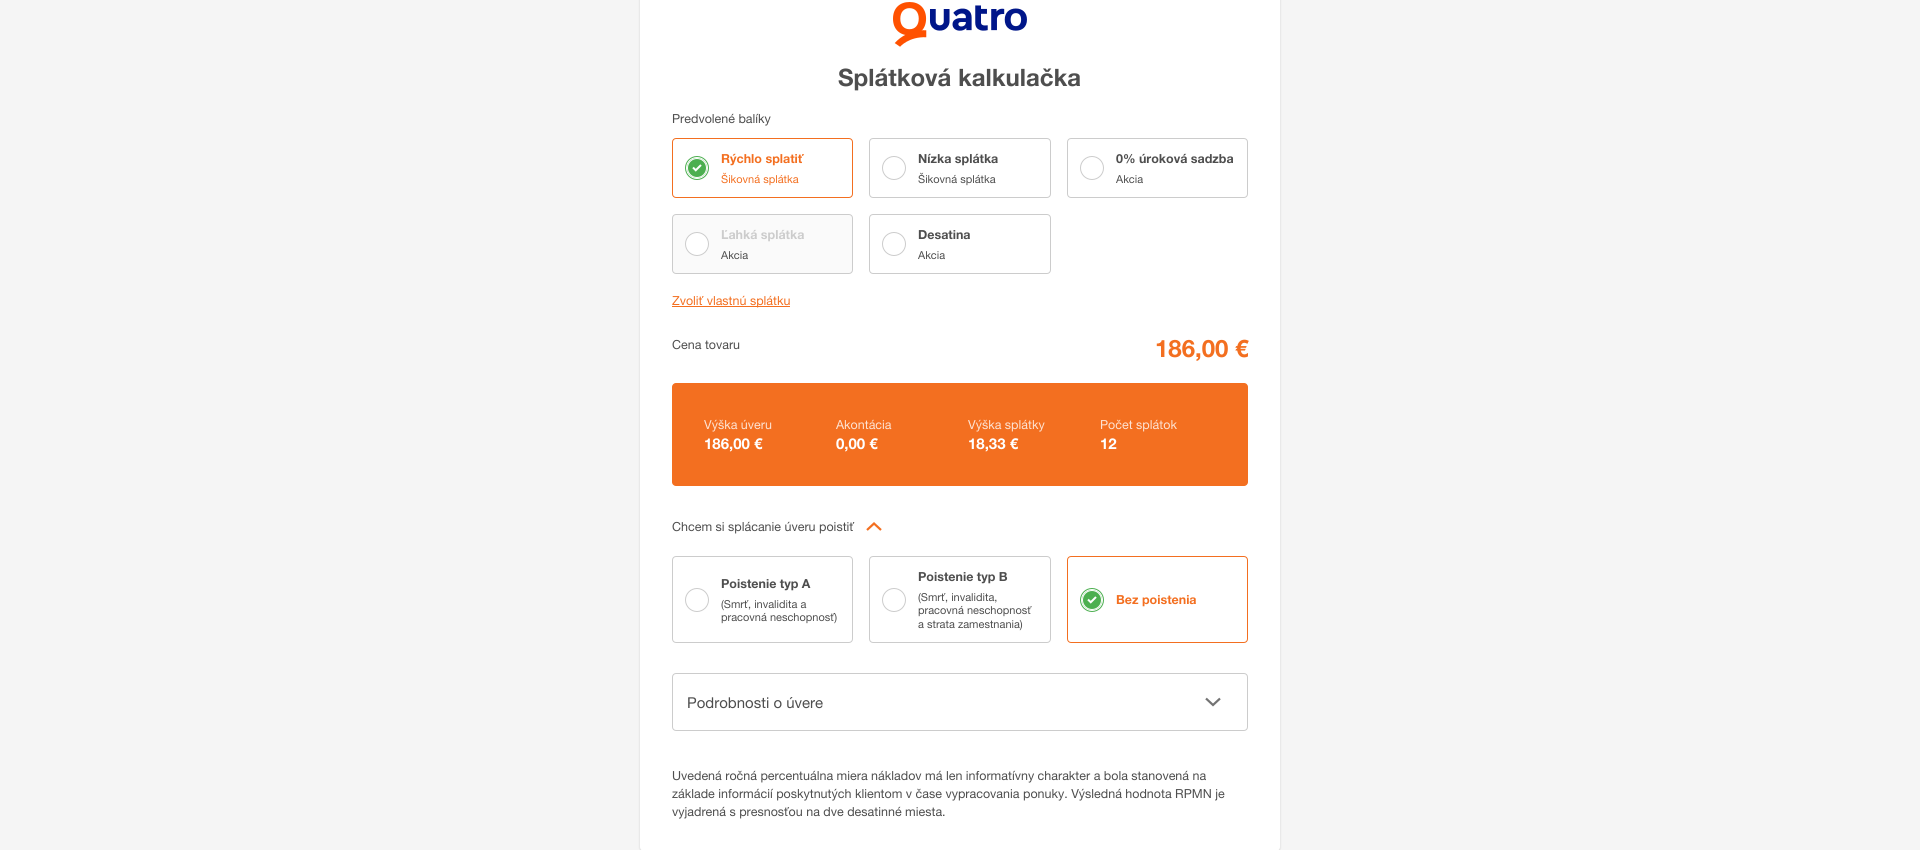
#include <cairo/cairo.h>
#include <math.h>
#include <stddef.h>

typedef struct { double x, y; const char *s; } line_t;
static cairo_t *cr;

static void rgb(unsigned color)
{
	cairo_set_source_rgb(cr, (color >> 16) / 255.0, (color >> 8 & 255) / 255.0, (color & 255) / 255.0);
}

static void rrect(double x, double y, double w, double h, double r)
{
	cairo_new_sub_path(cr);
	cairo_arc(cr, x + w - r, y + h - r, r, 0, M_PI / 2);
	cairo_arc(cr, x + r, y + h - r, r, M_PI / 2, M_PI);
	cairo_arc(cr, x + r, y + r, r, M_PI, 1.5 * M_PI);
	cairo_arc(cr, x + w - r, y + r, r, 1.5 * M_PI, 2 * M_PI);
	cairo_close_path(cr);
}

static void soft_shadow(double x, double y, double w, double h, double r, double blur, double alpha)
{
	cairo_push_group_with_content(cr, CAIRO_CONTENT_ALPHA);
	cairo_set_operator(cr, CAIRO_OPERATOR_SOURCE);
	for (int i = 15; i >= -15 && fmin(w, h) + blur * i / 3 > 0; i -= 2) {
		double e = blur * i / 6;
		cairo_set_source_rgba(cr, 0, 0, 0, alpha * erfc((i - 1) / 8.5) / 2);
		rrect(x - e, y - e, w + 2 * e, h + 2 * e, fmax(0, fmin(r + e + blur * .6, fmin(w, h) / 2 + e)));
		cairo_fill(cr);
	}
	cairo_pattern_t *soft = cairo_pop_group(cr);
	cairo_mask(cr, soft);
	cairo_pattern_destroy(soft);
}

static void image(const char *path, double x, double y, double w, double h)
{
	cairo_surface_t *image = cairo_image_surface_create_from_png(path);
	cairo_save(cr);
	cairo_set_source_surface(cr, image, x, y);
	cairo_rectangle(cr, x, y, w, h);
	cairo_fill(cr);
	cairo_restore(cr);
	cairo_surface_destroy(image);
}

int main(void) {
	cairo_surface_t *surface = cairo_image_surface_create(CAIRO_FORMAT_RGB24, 1920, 850);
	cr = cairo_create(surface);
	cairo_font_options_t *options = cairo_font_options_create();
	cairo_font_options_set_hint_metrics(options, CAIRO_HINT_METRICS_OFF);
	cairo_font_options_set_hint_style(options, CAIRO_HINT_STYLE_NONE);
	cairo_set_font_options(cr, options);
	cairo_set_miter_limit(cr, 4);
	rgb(0xf5f5f5);
	cairo_paint(cr);
	rgb(0x000000);
	soft_shadow(640, -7, 640, 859, 4, 1, 0.15);
	rgb(0xffffff);
	rrect(640, -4, 640, 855, 4);
	cairo_fill(cr);
	image("img/1.png", 893, 2, 134, 45);
	rrect(672.5, 138.5, 180, 59, 3.5);
	rgb(0xf36f20);
	cairo_set_line_width(cr, 1);
	cairo_stroke(cr);
	image("img/2.png", 685, 156, 24, 24);
	rrect(869.5, 138.5, 181, 59, 3.5);
	rgb(0xcccccc);
	cairo_stroke(cr);
	cairo_arc(cr, 894, 168, 11.5, 0, 2 * M_PI);
	cairo_stroke(cr);
	rrect(1067.5, 138.5, 180, 59, 3.5);
	cairo_stroke(cr);
	cairo_arc(cr, 1092, 168, 11.5, 0, 2 * M_PI);
	cairo_stroke(cr);
	rgb(0xfafafa);
	rrect(672.5, 214.5, 180, 59, 3.5);
	cairo_fill_preserve(cr);
	rgb(0xcccccc);
	cairo_stroke(cr);
	rgb(0xffffff);
	cairo_arc(cr, 697, 244, 11.5, 0, 2 * M_PI);
	cairo_fill_preserve(cr);
	rgb(0xcccccc);
	cairo_stroke(cr);
	rrect(869.5, 214.5, 181, 59, 3.5);
	cairo_stroke(cr);
	cairo_arc(cr, 894, 244, 11.5, 0, 2 * M_PI);
	cairo_stroke(cr);
	rgb(0xf36f20);
	cairo_rectangle(cr, 672, 306, 118, 1);
	cairo_fill(cr);
	rrect(672, 383, 576, 103, 4);
	cairo_fill(cr);
	cairo_new_path(cr);
	cairo_move_to(cr, 867, 530);
	cairo_line_to(cr, 874, 523.5);
	cairo_line_to(cr, 881, 530);
	cairo_set_line_width(cr, 2.2);
	cairo_stroke(cr);
	rrect(672.5, 556.5, 180, 86, 3.5);
	rgb(0xcccccc);
	cairo_set_line_width(cr, 1);
	cairo_stroke(cr);
	cairo_arc(cr, 697, 600, 11.5, 0, 2 * M_PI);
	cairo_stroke(cr);
	rrect(869.5, 556.5, 181, 86, 3.5);
	cairo_stroke(cr);
	cairo_arc(cr, 894, 600, 11.5, 0, 2 * M_PI);
	cairo_stroke(cr);
	rrect(1067.5, 556.5, 180, 86, 3.5);
	rgb(0xf36f20);
	cairo_stroke(cr);
	image("img/2.png", 1080, 588, 24, 24);
	rrect(672.5, 673.5, 575, 57, 3.5);
	rgb(0xcccccc);
	cairo_stroke(cr);
	cairo_new_path(cr);
	cairo_move_to(cr, 1206, 698.5);
	cairo_line_to(cr, 1213, 705);
	cairo_line_to(cr, 1220, 698.5);
	rgb(0x737373);
	cairo_set_line_width(cr, 2.2);
	cairo_stroke(cr);
	cairo_select_font_face(cr, "Helvetica Neue", CAIRO_FONT_SLANT_NORMAL, CAIRO_FONT_WEIGHT_BOLD);
	cairo_set_font_size(cr, 24);
	rgb(0x4e4e4e);
	cairo_move_to(cr, 838, 86);
	cairo_show_text(cr, "Splátková kalkulačka");
	cairo_select_font_face(cr, "Helvetica Neue", CAIRO_FONT_SLANT_NORMAL, CAIRO_FONT_WEIGHT_NORMAL);
	cairo_set_font_size(cr, 12.5);
	cairo_move_to(cr, 672, 123);
	cairo_show_text(cr, "Predvolené balíky");
	cairo_select_font_face(cr, "Helvetica Neue", CAIRO_FONT_SLANT_NORMAL, CAIRO_FONT_WEIGHT_BOLD);
	rgb(0xf36f20);
	cairo_move_to(cr, 721, 163);
	cairo_show_text(cr, "Rýchlo splatiť");
	cairo_select_font_face(cr, "Helvetica Neue", CAIRO_FONT_SLANT_NORMAL, CAIRO_FONT_WEIGHT_NORMAL);
	cairo_set_font_size(cr, 11);
	cairo_move_to(cr, 721, 183);
	cairo_show_text(cr, "Šikovná splátka");
	cairo_select_font_face(cr, "Helvetica Neue", CAIRO_FONT_SLANT_NORMAL, CAIRO_FONT_WEIGHT_BOLD);
	cairo_set_font_size(cr, 12.5);
	rgb(0x4e4e4e);
	cairo_move_to(cr, 918, 163);
	cairo_show_text(cr, "Nízka splátka");
	cairo_select_font_face(cr, "Helvetica Neue", CAIRO_FONT_SLANT_NORMAL, CAIRO_FONT_WEIGHT_NORMAL);
	cairo_set_font_size(cr, 11);
	cairo_move_to(cr, 918, 183);
	cairo_show_text(cr, "Šikovná splátka");
	cairo_select_font_face(cr, "Helvetica Neue", CAIRO_FONT_SLANT_NORMAL, CAIRO_FONT_WEIGHT_BOLD);
	cairo_set_font_size(cr, 12.5);
	cairo_move_to(cr, 1116, 163);
	cairo_show_text(cr, "0% úroková sadzba");
	cairo_select_font_face(cr, "Helvetica Neue", CAIRO_FONT_SLANT_NORMAL, CAIRO_FONT_WEIGHT_NORMAL);
	cairo_set_font_size(cr, 11);
	cairo_move_to(cr, 1116, 183);
	cairo_show_text(cr, "Akcia");
	cairo_select_font_face(cr, "Helvetica Neue", CAIRO_FONT_SLANT_NORMAL, CAIRO_FONT_WEIGHT_BOLD);
	cairo_set_font_size(cr, 12.5);
	rgb(0xcccccc);
	cairo_move_to(cr, 721, 239);
	cairo_show_text(cr, "Ľahká splátka");
	cairo_select_font_face(cr, "Helvetica Neue", CAIRO_FONT_SLANT_NORMAL, CAIRO_FONT_WEIGHT_NORMAL);
	cairo_set_font_size(cr, 11);
	rgb(0x4e4e4e);
	cairo_move_to(cr, 721, 259);
	cairo_show_text(cr, "Akcia");
	cairo_select_font_face(cr, "Helvetica Neue", CAIRO_FONT_SLANT_NORMAL, CAIRO_FONT_WEIGHT_BOLD);
	cairo_set_font_size(cr, 12.5);
	cairo_move_to(cr, 918, 239);
	cairo_show_text(cr, "Desatina");
	cairo_select_font_face(cr, "Helvetica Neue", CAIRO_FONT_SLANT_NORMAL, CAIRO_FONT_WEIGHT_NORMAL);
	cairo_set_font_size(cr, 11);
	cairo_move_to(cr, 918, 259);
	cairo_show_text(cr, "Akcia");
	cairo_set_font_size(cr, 12.5);
	rgb(0xf36f20);
	cairo_move_to(cr, 672, 305);
	cairo_show_text(cr, "Zvoliť vlastnú splátku");
	rgb(0x4e4e4e);
	cairo_move_to(cr, 672, 349);
	cairo_show_text(cr, "Cena tovaru");
	cairo_select_font_face(cr, "Helvetica Neue", CAIRO_FONT_SLANT_NORMAL, CAIRO_FONT_WEIGHT_BOLD);
	cairo_set_font_size(cr, 24);
	rgb(0xf36f20);
	cairo_move_to(cr, 1155, 357);
	cairo_show_text(cr, "186,00 €");
	cairo_select_font_face(cr, "Helvetica Neue", CAIRO_FONT_SLANT_NORMAL, CAIRO_FONT_WEIGHT_NORMAL);
	cairo_set_font_size(cr, 12.5);
	rgb(0xfde2d2);
	cairo_move_to(cr, 704, 429);
	cairo_show_text(cr, "Výška úveru");
	cairo_select_font_face(cr, "Helvetica Neue", CAIRO_FONT_SLANT_NORMAL, CAIRO_FONT_WEIGHT_BOLD);
	cairo_set_font_size(cr, 15);
	rgb(0xffffff);
	cairo_move_to(cr, 704, 449);
	cairo_show_text(cr, "186,00 €");
	cairo_select_font_face(cr, "Helvetica Neue", CAIRO_FONT_SLANT_NORMAL, CAIRO_FONT_WEIGHT_NORMAL);
	cairo_set_font_size(cr, 12.5);
	rgb(0xfde2d2);
	cairo_move_to(cr, 836, 429);
	cairo_show_text(cr, "Akontácia");
	cairo_select_font_face(cr, "Helvetica Neue", CAIRO_FONT_SLANT_NORMAL, CAIRO_FONT_WEIGHT_BOLD);
	cairo_set_font_size(cr, 15);
	rgb(0xffffff);
	cairo_move_to(cr, 836, 449);
	cairo_show_text(cr, "0,00 €");
	cairo_select_font_face(cr, "Helvetica Neue", CAIRO_FONT_SLANT_NORMAL, CAIRO_FONT_WEIGHT_NORMAL);
	cairo_set_font_size(cr, 12.5);
	rgb(0xfde2d2);
	cairo_move_to(cr, 968, 429);
	cairo_show_text(cr, "Výška splátky");
	cairo_select_font_face(cr, "Helvetica Neue", CAIRO_FONT_SLANT_NORMAL, CAIRO_FONT_WEIGHT_BOLD);
	cairo_set_font_size(cr, 15);
	rgb(0xffffff);
	cairo_move_to(cr, 968, 449);
	cairo_show_text(cr, "18,33 €");
	cairo_select_font_face(cr, "Helvetica Neue", CAIRO_FONT_SLANT_NORMAL, CAIRO_FONT_WEIGHT_NORMAL);
	cairo_set_font_size(cr, 12.5);
	rgb(0xfde2d2);
	cairo_move_to(cr, 1100, 429);
	cairo_show_text(cr, "Počet splátok");
	cairo_select_font_face(cr, "Helvetica Neue", CAIRO_FONT_SLANT_NORMAL, CAIRO_FONT_WEIGHT_BOLD);
	cairo_set_font_size(cr, 15);
	rgb(0xffffff);
	cairo_move_to(cr, 1100, 449);
	cairo_show_text(cr, "12");
	cairo_select_font_face(cr, "Helvetica Neue", CAIRO_FONT_SLANT_NORMAL, CAIRO_FONT_WEIGHT_NORMAL);
	cairo_set_font_size(cr, 12.5);
	rgb(0x4e4e4e);
	cairo_move_to(cr, 672, 531);
	cairo_show_text(cr, "Chcem si splácanie úveru poistiť");
	cairo_select_font_face(cr, "Helvetica Neue", CAIRO_FONT_SLANT_NORMAL, CAIRO_FONT_WEIGHT_BOLD);
	cairo_move_to(cr, 721, 588);
	cairo_show_text(cr, "Poistenie typ A");
	cairo_select_font_face(cr, "Helvetica Neue", CAIRO_FONT_SLANT_NORMAL, CAIRO_FONT_WEIGHT_NORMAL);
	cairo_set_font_size(cr, 11);
	cairo_move_to(cr, 721, 608);
	cairo_show_text(cr, "(Smrť, invalidita a");
	cairo_move_to(cr, 721, 621);
	cairo_show_text(cr, "pracovná neschopnosť)");
	cairo_select_font_face(cr, "Helvetica Neue", CAIRO_FONT_SLANT_NORMAL, CAIRO_FONT_WEIGHT_BOLD);
	cairo_set_font_size(cr, 12.5);
	cairo_move_to(cr, 918, 581);
	cairo_show_text(cr, "Poistenie typ B");
	cairo_select_font_face(cr, "Helvetica Neue", CAIRO_FONT_SLANT_NORMAL, CAIRO_FONT_WEIGHT_NORMAL);
	cairo_set_font_size(cr, 11);
	{
		static const line_t items[] = {
			{918, 601, "(Smrť, invalidita,"},
			{918, 614, "pracovná neschopnosť"},
			{918, 628, "a strata zamestnania)"},
		};
		for (size_t i = 0; i < sizeof items / sizeof *items; i++) {
			cairo_move_to(cr, items[i].x, items[i].y);
			cairo_show_text(cr, items[i].s);
		}
	}
	cairo_select_font_face(cr, "Helvetica Neue", CAIRO_FONT_SLANT_NORMAL, CAIRO_FONT_WEIGHT_BOLD);
	cairo_set_font_size(cr, 12.5);
	rgb(0xf36f20);
	cairo_move_to(cr, 1116, 604);
	cairo_show_text(cr, "Bez poistenia");
	cairo_select_font_face(cr, "Helvetica Neue", CAIRO_FONT_SLANT_NORMAL, CAIRO_FONT_WEIGHT_NORMAL);
	cairo_set_font_size(cr, 15);
	rgb(0x4e4e4e);
	cairo_move_to(cr, 687, 708);
	cairo_show_text(cr, "Podrobnosti o úvere");
	cairo_set_font_size(cr, 12.5);
	{
		static const line_t items[] = {
			{672, 780, "Uvedená ročná percentuálna miera nákladov má len informatívny charakter a bola stanovená na"},
			{672, 798, "základe informácií poskytnutých klientom v čase vypracovania ponuky. Výsledná hodnota RPMN je"},
			{672, 816, "vyjadrená s presnosťou na dve desatinné miesta."},
		};
		for (size_t i = 0; i < sizeof items / sizeof *items; i++) {
			cairo_move_to(cr, items[i].x, items[i].y);
			cairo_show_text(cr, items[i].s);
		}
	}
	cairo_surface_write_to_png(surface, "page.png");
	cairo_font_options_destroy(options);
	cairo_destroy(cr);
	cairo_surface_destroy(surface);
	return 0;
}
